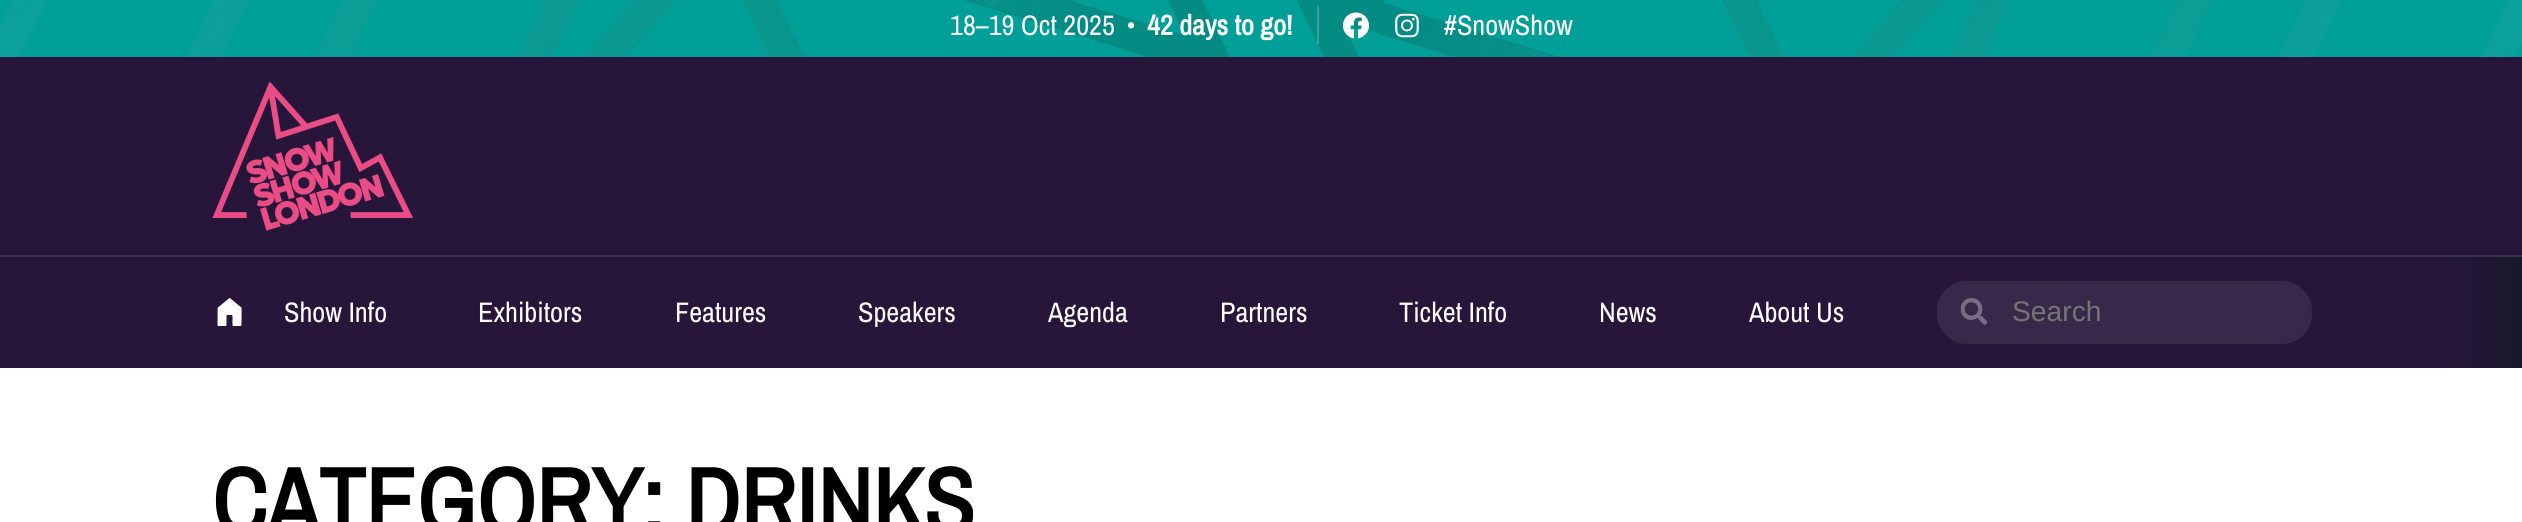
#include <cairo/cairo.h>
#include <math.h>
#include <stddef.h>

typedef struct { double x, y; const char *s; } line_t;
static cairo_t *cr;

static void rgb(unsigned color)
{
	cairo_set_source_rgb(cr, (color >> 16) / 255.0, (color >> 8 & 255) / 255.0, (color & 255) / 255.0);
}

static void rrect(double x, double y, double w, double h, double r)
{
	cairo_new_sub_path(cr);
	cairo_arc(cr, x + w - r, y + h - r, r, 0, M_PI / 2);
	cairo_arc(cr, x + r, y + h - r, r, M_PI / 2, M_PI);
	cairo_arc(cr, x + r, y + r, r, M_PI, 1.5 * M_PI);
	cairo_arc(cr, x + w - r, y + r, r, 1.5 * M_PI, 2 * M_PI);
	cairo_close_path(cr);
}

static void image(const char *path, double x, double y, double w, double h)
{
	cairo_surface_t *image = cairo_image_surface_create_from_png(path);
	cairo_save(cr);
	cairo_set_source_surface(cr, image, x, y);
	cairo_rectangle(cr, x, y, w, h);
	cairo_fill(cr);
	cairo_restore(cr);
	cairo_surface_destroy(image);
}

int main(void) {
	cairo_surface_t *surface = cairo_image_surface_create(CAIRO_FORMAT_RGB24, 2522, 522);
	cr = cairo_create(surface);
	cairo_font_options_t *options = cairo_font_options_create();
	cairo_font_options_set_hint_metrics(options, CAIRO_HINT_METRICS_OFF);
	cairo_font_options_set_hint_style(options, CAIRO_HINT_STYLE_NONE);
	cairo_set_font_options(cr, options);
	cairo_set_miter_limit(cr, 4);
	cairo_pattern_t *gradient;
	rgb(0xffffff);
	cairo_paint(cr);
	rgb(0x00a098);
	cairo_rectangle(cr, 0, 0, 2522, 57);
	cairo_fill(cr);
	image("img/1.png", 0, 0, 2522, 57);
	cairo_set_source_rgba(cr, 1, 1, 1, 0.2);
	cairo_rectangle(cr, 1317, 6, 2, 38);
	cairo_fill(cr);
	image("img/2.png", 1343, 12, 26, 27);
	image("img/3.png", 1395, 13, 24, 25);
	rgb(0x27163a);
	cairo_rectangle(cr, 0, 57, 2522, 198);
	cairo_fill(cr);
	image("img/4.png", 212, 81, 201, 150);
	cairo_rectangle(cr, 0, 257, 2441, 111);
	cairo_fill(cr);
	rgb(0x32324e);
	cairo_rectangle(cr, 0, 255, 2522, 2);
	cairo_fill(cr);
	image("img/5.png", 217, 298, 25, 28);
	rgb(0x38294a);
	rrect(1937, 281, 375, 63, 30);
	cairo_fill(cr);
	image("img/6.png", 1960, 298, 28, 27);
	gradient = cairo_pattern_create_linear(2441, 312, 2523, 312);
	cairo_pattern_add_color_stop_rgba(gradient, 0, 0.153, 0.086, 0.227, 1);
	cairo_pattern_add_color_stop_rgba(gradient, 1, 0.094, 0.094, 0.173, 1);
	cairo_set_source(cr, gradient);
	cairo_pattern_destroy(gradient);
	cairo_rectangle(cr, 2441, 257, 81, 111);
	cairo_fill(cr);
	cairo_select_font_face(cr, "Archivo Narrow", CAIRO_FONT_SLANT_NORMAL, CAIRO_FONT_WEIGHT_NORMAL);
	cairo_set_font_size(cr, 28.25);
	rgb(0xffffff);
	cairo_move_to(cr, 950, 35);
	cairo_show_text(cr, "18–19 Oct 2025");
	cairo_move_to(cr, 1127, 35);
	cairo_show_text(cr, "•");
	cairo_select_font_face(cr, "Archivo Narrow", CAIRO_FONT_SLANT_NORMAL, CAIRO_FONT_WEIGHT_BOLD);
	cairo_move_to(cr, 1147, 35);
	cairo_show_text(cr, "42 days to go!");
	cairo_select_font_face(cr, "Archivo Narrow", CAIRO_FONT_SLANT_NORMAL, CAIRO_FONT_WEIGHT_NORMAL);
	{
		static const line_t items[] = {
			{1444, 35, "#SnowShow"},
			{284, 322, "Show Info"},
			{478, 322, "Exhibitors"},
			{675, 322, "Features"},
			{858, 322, "Speakers"},
			{1048, 322, "Agenda"},
			{1220, 322, "Partners"},
			{1399, 322, "Ticket Info"},
			{1599, 322, "News"},
			{1749, 322, "About Us"},
		};
		for (size_t i = 0; i < sizeof items / sizeof *items; i++) {
			cairo_move_to(cr, items[i].x, items[i].y);
			cairo_show_text(cr, items[i].s);
		}
	}
	cairo_select_font_face(cr, "Liberation Sans", CAIRO_FONT_SLANT_NORMAL, CAIRO_FONT_WEIGHT_NORMAL);
	rgb(0x757575);
	cairo_move_to(cr, 2012, 321);
	cairo_show_text(cr, "Search");
	cairo_select_font_face(cr, "Archivo Narrow", CAIRO_FONT_SLANT_NORMAL, CAIRO_FONT_WEIGHT_BOLD);
	cairo_set_font_size(cr, 93.5);
	rgb(0x000000);
	cairo_move_to(cr, 212, 534);
	cairo_show_text(cr, "CATEGORY: DRINKS");
	cairo_surface_write_to_png(surface, "page.png");
	cairo_font_options_destroy(options);
	cairo_destroy(cr);
	cairo_surface_destroy(surface);
	return 0;
}
